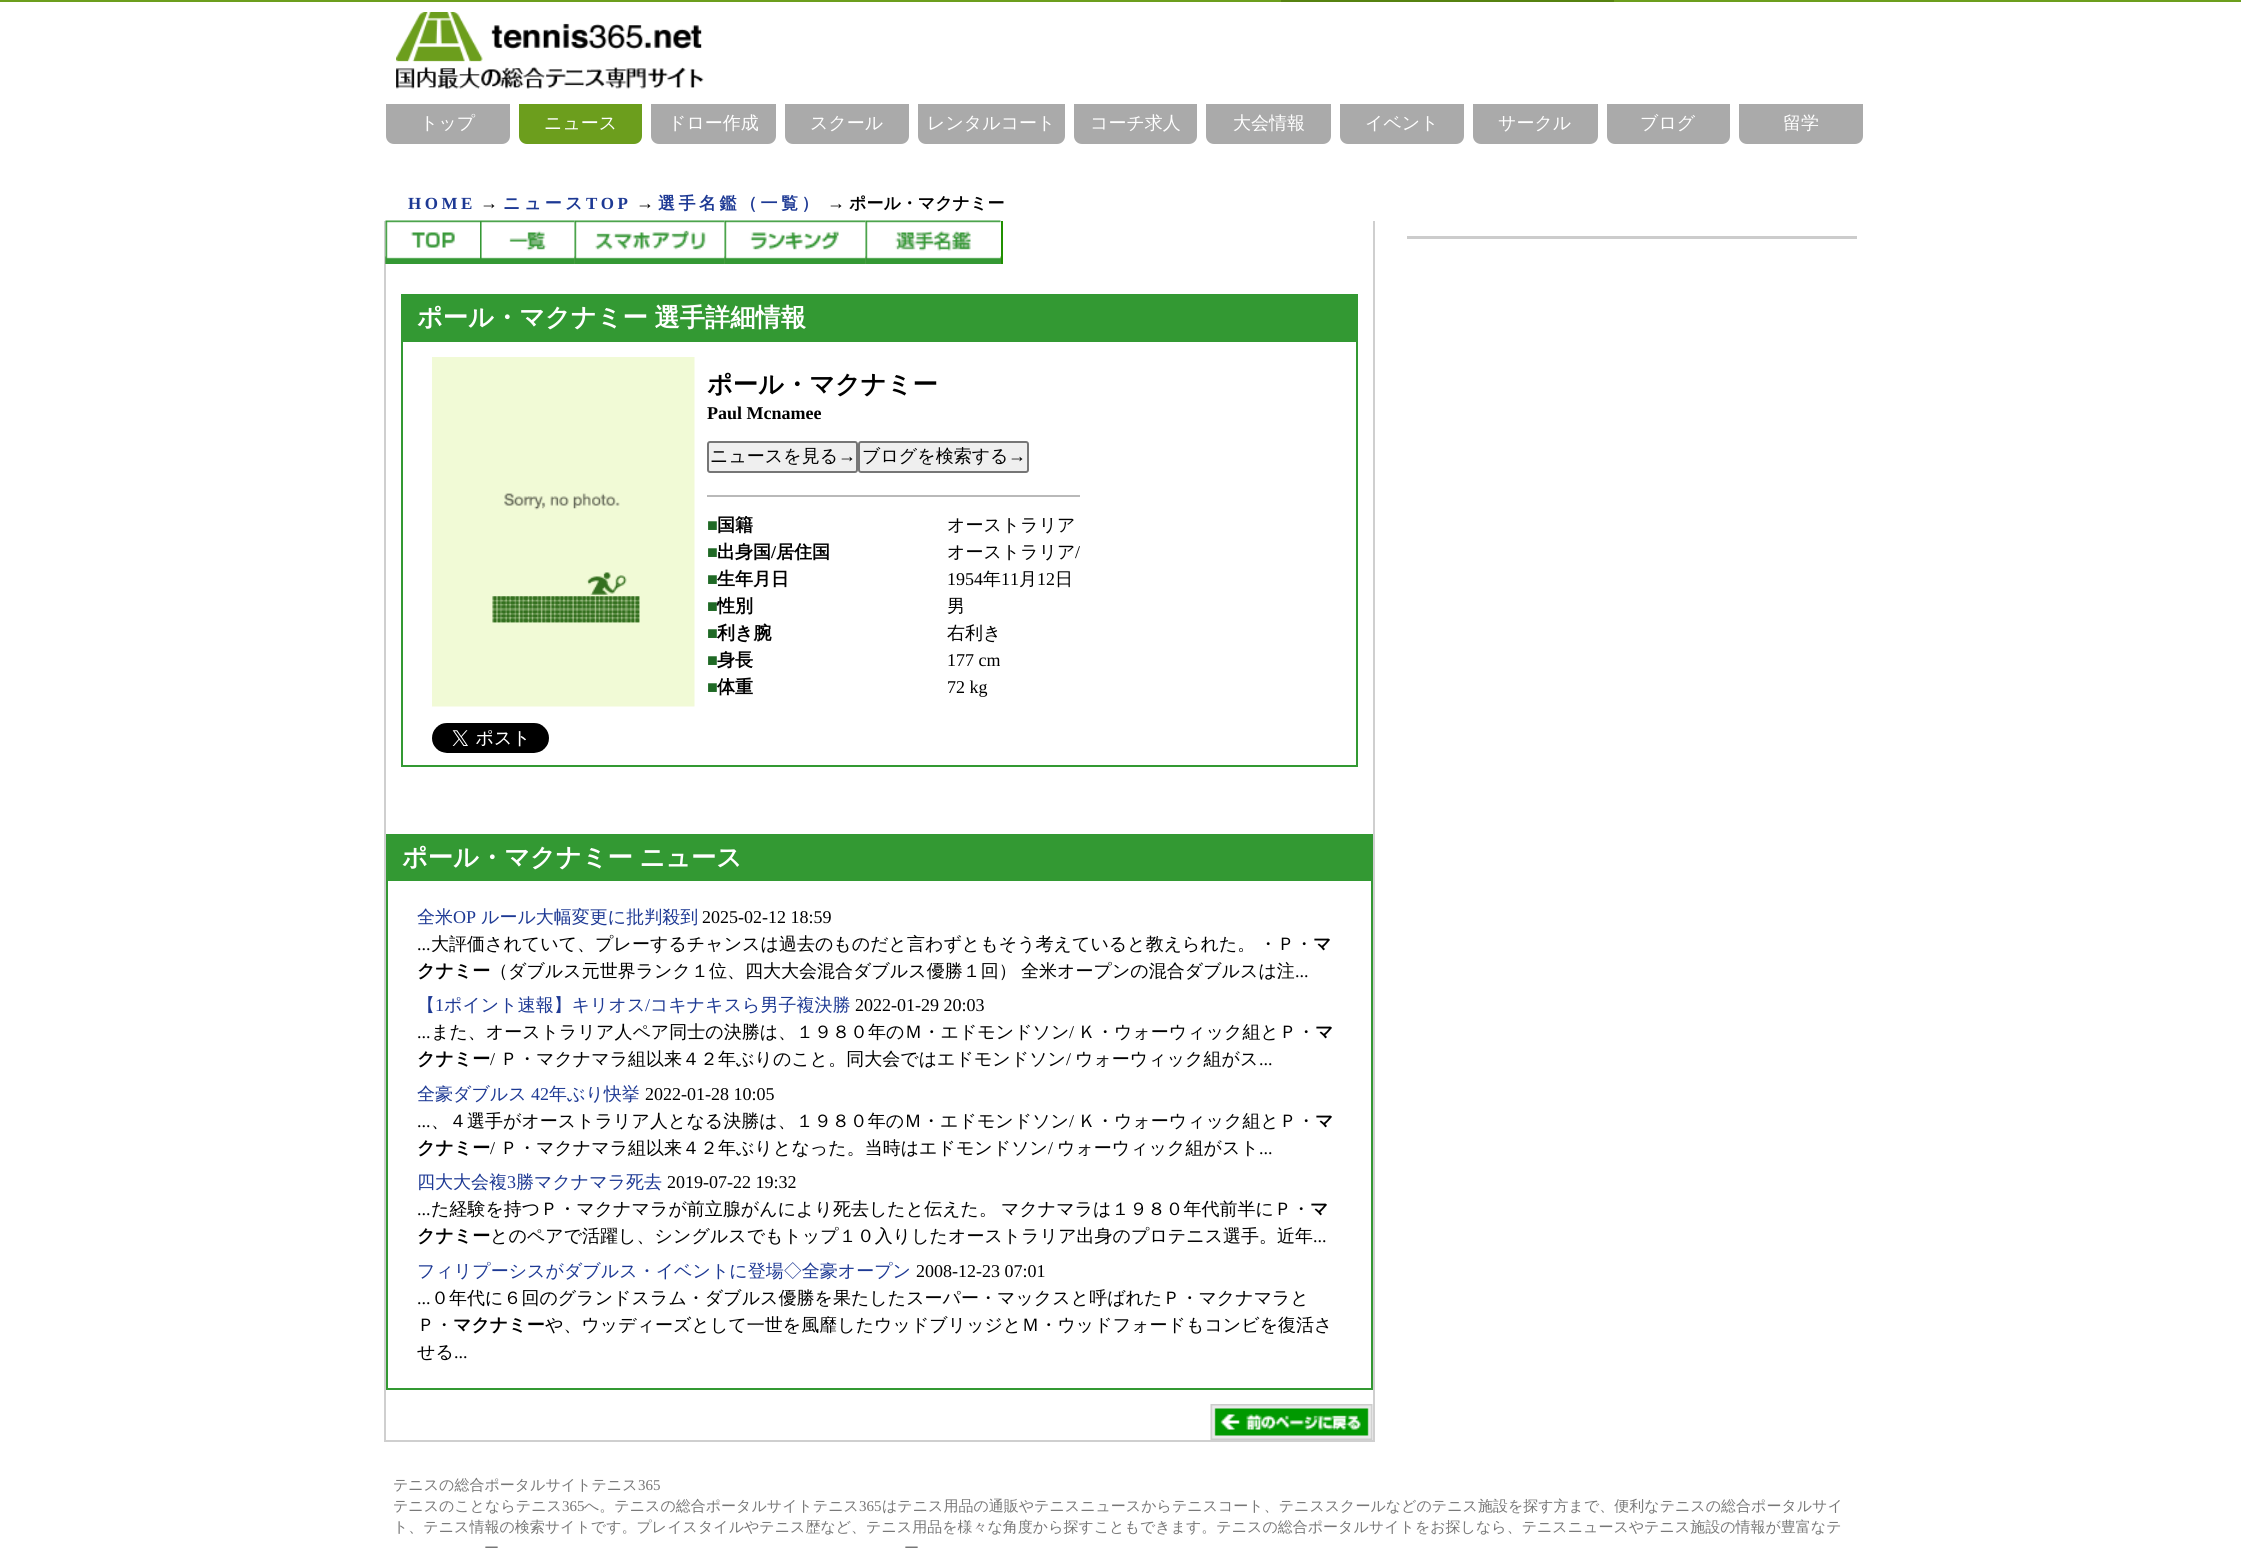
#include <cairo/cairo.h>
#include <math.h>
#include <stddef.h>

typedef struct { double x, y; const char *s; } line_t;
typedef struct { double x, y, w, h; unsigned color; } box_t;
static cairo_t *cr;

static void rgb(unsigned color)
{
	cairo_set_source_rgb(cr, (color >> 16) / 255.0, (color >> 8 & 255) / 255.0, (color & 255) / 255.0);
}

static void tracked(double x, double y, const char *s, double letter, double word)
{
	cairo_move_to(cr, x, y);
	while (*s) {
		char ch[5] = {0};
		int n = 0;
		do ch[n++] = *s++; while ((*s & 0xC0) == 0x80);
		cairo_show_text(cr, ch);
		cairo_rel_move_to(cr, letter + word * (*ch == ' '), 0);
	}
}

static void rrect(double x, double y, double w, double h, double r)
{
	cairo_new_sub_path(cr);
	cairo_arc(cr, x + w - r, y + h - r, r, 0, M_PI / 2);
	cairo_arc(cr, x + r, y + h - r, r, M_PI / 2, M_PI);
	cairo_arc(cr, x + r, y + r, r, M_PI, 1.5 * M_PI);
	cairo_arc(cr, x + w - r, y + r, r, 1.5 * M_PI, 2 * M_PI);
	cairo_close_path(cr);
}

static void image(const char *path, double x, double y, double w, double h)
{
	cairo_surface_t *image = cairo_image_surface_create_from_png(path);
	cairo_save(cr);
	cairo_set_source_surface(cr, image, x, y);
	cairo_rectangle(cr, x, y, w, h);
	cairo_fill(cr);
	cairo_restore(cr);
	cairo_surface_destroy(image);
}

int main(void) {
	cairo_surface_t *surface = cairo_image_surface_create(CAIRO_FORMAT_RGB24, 2241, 1548);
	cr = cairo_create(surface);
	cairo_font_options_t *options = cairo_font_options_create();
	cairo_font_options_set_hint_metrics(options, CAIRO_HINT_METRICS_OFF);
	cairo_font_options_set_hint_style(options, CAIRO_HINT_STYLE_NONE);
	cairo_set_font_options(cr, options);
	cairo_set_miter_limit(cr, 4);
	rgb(0xffffff);
	cairo_paint(cr);
	rgb(0x6c9e1d);
	cairo_rectangle(cr, 0, 0, 2241, 2);
	cairo_fill(cr);
	rgb(0x568210);
	cairo_rectangle(cr, 1281, 0, 333, 2);
	cairo_fill(cr);
	image("img/1.png", 396, 12, 308, 77);
	rgb(0xaaaaaa);
	cairo_new_path(cr);
	cairo_move_to(cr, 386, 104);
	cairo_line_to(cr, 510, 104);
	cairo_line_to(cr, 510, 136);
	cairo_curve_to(cr, 510, 140.5, 506.5, 144, 502, 144);
	cairo_line_to(cr, 394, 144);
	cairo_curve_to(cr, 389.5, 144, 386, 140.5, 386, 136);
	cairo_close_path(cr);
	cairo_fill(cr);
	rgb(0x6c9e1d);
	cairo_new_path(cr);
	cairo_move_to(cr, 519, 104);
	cairo_line_to(cr, 642, 104);
	cairo_line_to(cr, 642, 136);
	cairo_curve_to(cr, 642, 140.5, 638.5, 144, 634, 144);
	cairo_line_to(cr, 527, 144);
	cairo_curve_to(cr, 522.5, 144, 519, 140.5, 519, 136);
	cairo_close_path(cr);
	cairo_fill(cr);
	rgb(0xaaaaaa);
	cairo_new_path(cr);
	cairo_move_to(cr, 651, 104);
	cairo_line_to(cr, 776, 104);
	cairo_line_to(cr, 776, 136);
	cairo_curve_to(cr, 776, 140.5, 772.5, 144, 768, 144);
	cairo_line_to(cr, 659, 144);
	cairo_curve_to(cr, 654.5, 144, 651, 140.5, 651, 136);
	cairo_close_path(cr);
	cairo_fill(cr);
	cairo_new_path(cr);
	cairo_move_to(cr, 785, 104);
	cairo_line_to(cr, 909, 104);
	cairo_line_to(cr, 909, 136);
	cairo_curve_to(cr, 909, 140.5, 905.5, 144, 901, 144);
	cairo_line_to(cr, 793, 144);
	cairo_curve_to(cr, 788.5, 144, 785, 140.5, 785, 136);
	cairo_close_path(cr);
	cairo_fill(cr);
	cairo_new_path(cr);
	cairo_move_to(cr, 918, 104);
	cairo_line_to(cr, 1065, 104);
	cairo_line_to(cr, 1065, 136);
	cairo_curve_to(cr, 1065, 140.5, 1061.5, 144, 1057, 144);
	cairo_line_to(cr, 926, 144);
	cairo_curve_to(cr, 921.5, 144, 918, 140.5, 918, 136);
	cairo_close_path(cr);
	cairo_fill(cr);
	cairo_new_path(cr);
	cairo_move_to(cr, 1074, 104);
	cairo_line_to(cr, 1197, 104);
	cairo_line_to(cr, 1197, 136);
	cairo_curve_to(cr, 1197, 140.5, 1193.5, 144, 1189, 144);
	cairo_line_to(cr, 1082, 144);
	cairo_curve_to(cr, 1077.5, 144, 1074, 140.5, 1074, 136);
	cairo_close_path(cr);
	cairo_fill(cr);
	cairo_new_path(cr);
	cairo_move_to(cr, 1206, 104);
	cairo_line_to(cr, 1331, 104);
	cairo_line_to(cr, 1331, 136);
	cairo_curve_to(cr, 1331, 140.5, 1327.5, 144, 1323, 144);
	cairo_line_to(cr, 1214, 144);
	cairo_curve_to(cr, 1209.5, 144, 1206, 140.5, 1206, 136);
	cairo_close_path(cr);
	cairo_fill(cr);
	cairo_new_path(cr);
	cairo_move_to(cr, 1340, 104);
	cairo_line_to(cr, 1464, 104);
	cairo_line_to(cr, 1464, 136);
	cairo_curve_to(cr, 1464, 140.5, 1460.5, 144, 1456, 144);
	cairo_line_to(cr, 1348, 144);
	cairo_curve_to(cr, 1343.5, 144, 1340, 140.5, 1340, 136);
	cairo_close_path(cr);
	cairo_fill(cr);
	cairo_new_path(cr);
	cairo_move_to(cr, 1473, 104);
	cairo_line_to(cr, 1598, 104);
	cairo_line_to(cr, 1598, 136);
	cairo_curve_to(cr, 1598, 140.5, 1594.5, 144, 1590, 144);
	cairo_line_to(cr, 1481, 144);
	cairo_curve_to(cr, 1476.5, 144, 1473, 140.5, 1473, 136);
	cairo_close_path(cr);
	cairo_fill(cr);
	cairo_new_path(cr);
	cairo_move_to(cr, 1607, 104);
	cairo_line_to(cr, 1730, 104);
	cairo_line_to(cr, 1730, 136);
	cairo_curve_to(cr, 1730, 140.5, 1726.5, 144, 1722, 144);
	cairo_line_to(cr, 1615, 144);
	cairo_curve_to(cr, 1610.5, 144, 1607, 140.5, 1607, 136);
	cairo_close_path(cr);
	cairo_fill(cr);
	cairo_new_path(cr);
	cairo_move_to(cr, 1739, 104);
	cairo_line_to(cr, 1863, 104);
	cairo_line_to(cr, 1863, 136);
	cairo_curve_to(cr, 1863, 140.5, 1859.5, 144, 1855, 144);
	cairo_line_to(cr, 1747, 144);
	cairo_curve_to(cr, 1742.5, 144, 1739, 140.5, 1739, 136);
	cairo_close_path(cr);
	cairo_fill(cr);
	{
		static const box_t items[] = {
			{1407, 236, 450, 3, 0xcccccc},
			{1373, 221, 2, 1221, 0xcfcfcf},
			{384, 1440, 990, 2, 0xcfcfcf},
			{384, 221, 2, 1221, 0xcfcfcf},
		};
		for (size_t i = 0; i < sizeof items / sizeof *items; i++) {
			rgb(items[i].color);
			cairo_rectangle(cr, items[i].x, items[i].y, items[i].w, items[i].h);
			cairo_fill(cr);
		}
	}
	image("img/2.png", 385, 221, 1, 43);
	image("img/3.png", 385, 220, 95, 44);
	image("img/4.png", 574, 256, 1, 8);
	image("img/6.png", 574, 256, 151, 8);
	image("img/5.png", 480, 220, 95, 44);
	image("img/8.png", 724, 256, 142, 8);
	image("img/7.png", 574, 220, 151, 44);
	image("img/10.png", 865, 256, 136, 8);
	image("img/9.png", 724, 220, 142, 44);
	image("img/11.png", 865, 220, 136, 44);
	{
		static const box_t items[] = {
			{1001, 221, 2, 43, 0x209000},
			{401, 294, 957, 48, 0x339933},
			{1356, 342, 2, 425, 0x339933},
			{401, 765, 957, 2, 0x339933},
			{401, 342, 2, 425, 0x339933},
		};
		for (size_t i = 0; i < sizeof items / sizeof *items; i++) {
			rgb(items[i].color);
			cairo_rectangle(cr, items[i].x, items[i].y, items[i].w, items[i].h);
			cairo_fill(cr);
		}
	}
	image("img/12.png", 432, 357, 263, 350);
	rgb(0xefefef);
	rrect(708, 442, 149, 30, 2);
	cairo_fill_preserve(cr);
	rgb(0x767676);
	cairo_stroke(cr);
	rgb(0xefefef);
	rrect(859, 442, 169, 30, 2);
	cairo_fill_preserve(cr);
	rgb(0x767676);
	cairo_stroke(cr);
	rgb(0xb9b9b9);
	cairo_rectangle(cr, 707, 495, 373, 2);
	cairo_fill(cr);
	image("img/13.png", 432, 723, 117, 30);
	{
		static const box_t items[] = {
			{386, 834, 987, 47, 0x339933},
			{1371, 881, 2, 508, 0x339933},
			{386, 1388, 987, 2, 0x339933},
			{386, 881, 2, 508, 0x339933},
		};
		for (size_t i = 0; i < sizeof items / sizeof *items; i++) {
			rgb(items[i].color);
			cairo_rectangle(cr, items[i].x, items[i].y, items[i].w, items[i].h);
			cairo_fill(cr);
		}
	}
	image("img/14.png", 1210, 1404, 163, 36);
	cairo_select_font_face(cr, "WenQuanYi Zen Hei Medium", CAIRO_FONT_SLANT_NORMAL, CAIRO_FONT_WEIGHT_NORMAL);
	cairo_set_font_size(cr, 18);
	rgb(0xffffff);
	{
		static const line_t items[] = {
			{420, 129, "トップ"},
			{544, 129, "ニュース"},
			{668, 129, "ドロー作成"},
			{810, 129, "スクール"},
			{927, 129, "レンタルコート"},
			{1090, 129, "コーチ求人"},
			{1233, 129, "大会情報"},
			{1365, 129, "イベント"},
			{1498, 129, "サークル"},
			{1640, 129, "ブログ"},
			{1783, 129, "留学"},
		};
		for (size_t i = 0; i < sizeof items / sizeof *items; i++) {
			cairo_move_to(cr, items[i].x, items[i].y);
			cairo_show_text(cr, items[i].s);
		}
	}
	cairo_select_font_face(cr, "Liberation Serif", CAIRO_FONT_SLANT_NORMAL, CAIRO_FONT_WEIGHT_BOLD);
	cairo_set_font_size(cr, 17);
	rgb(0x1d3994);
	tracked(408, 209, "HOME", 3.5, 0);
	cairo_select_font_face(cr, "Liberation Serif", CAIRO_FONT_SLANT_NORMAL, CAIRO_FONT_WEIGHT_NORMAL);
	cairo_set_font_size(cr, 18);
	rgb(0x000000);
	cairo_move_to(cr, 480, 209);
	cairo_show_text(cr, "→");
	cairo_select_font_face(cr, "WenQuanYi Zen Hei", CAIRO_FONT_SLANT_NORMAL, CAIRO_FONT_WEIGHT_BOLD);
	cairo_set_font_size(cr, 17);
	rgb(0x1d3994);
	tracked(503, 209, "ニュース", 3.5, 0);
	cairo_select_font_face(cr, "Liberation Serif", CAIRO_FONT_SLANT_NORMAL, CAIRO_FONT_WEIGHT_BOLD);
	tracked(586, 209, "TOP", 3.5, 0);
	cairo_select_font_face(cr, "Liberation Serif", CAIRO_FONT_SLANT_NORMAL, CAIRO_FONT_WEIGHT_NORMAL);
	cairo_set_font_size(cr, 18);
	rgb(0x000000);
	cairo_move_to(cr, 636, 209);
	cairo_show_text(cr, "→");
	cairo_select_font_face(cr, "WenQuanYi Zen Hei", CAIRO_FONT_SLANT_NORMAL, CAIRO_FONT_WEIGHT_BOLD);
	cairo_set_font_size(cr, 17);
	rgb(0x1d3994);
	tracked(658, 209, "選手名鑑（一覧）", 3.5, 0);
	cairo_select_font_face(cr, "Liberation Serif", CAIRO_FONT_SLANT_NORMAL, CAIRO_FONT_WEIGHT_NORMAL);
	cairo_set_font_size(cr, 18);
	rgb(0x000000);
	cairo_move_to(cr, 827, 209);
	cairo_show_text(cr, "→");
	cairo_select_font_face(cr, "WenQuanYi Zen Hei", CAIRO_FONT_SLANT_NORMAL, CAIRO_FONT_WEIGHT_BOLD);
	cairo_set_font_size(cr, 17);
	cairo_move_to(cr, 849, 209);
	cairo_show_text(cr, "ポール・マクナミー");
	cairo_set_font_size(cr, 25.25);
	rgb(0xffffff);
	tracked(417, 326, "ポール・マクナミー 選手詳細情報", 0, -1);
	rgb(0x000000);
	cairo_move_to(cr, 707, 393);
	cairo_show_text(cr, "ポール・マクナミー");
	cairo_select_font_face(cr, "Liberation Serif", CAIRO_FONT_SLANT_NORMAL, CAIRO_FONT_WEIGHT_BOLD);
	cairo_set_font_size(cr, 18);
	cairo_move_to(cr, 707, 419);
	cairo_show_text(cr, "Paul Mcnamee");
	cairo_select_font_face(cr, "WenQuanYi Zen Hei Medium", CAIRO_FONT_SLANT_NORMAL, CAIRO_FONT_WEIGHT_NORMAL);
	cairo_move_to(cr, 710, 462);
	cairo_show_text(cr, "ニュースを見る");
	cairo_select_font_face(cr, "Liberation Sans", CAIRO_FONT_SLANT_NORMAL, CAIRO_FONT_WEIGHT_NORMAL);
	cairo_move_to(cr, 838, 462);
	cairo_show_text(cr, "→");
	cairo_select_font_face(cr, "WenQuanYi Zen Hei Medium", CAIRO_FONT_SLANT_NORMAL, CAIRO_FONT_WEIGHT_NORMAL);
	cairo_move_to(cr, 862, 462);
	cairo_show_text(cr, "ブログを検索する");
	cairo_select_font_face(cr, "Liberation Sans", CAIRO_FONT_SLANT_NORMAL, CAIRO_FONT_WEIGHT_NORMAL);
	cairo_move_to(cr, 1008, 462);
	cairo_show_text(cr, "→");
	cairo_select_font_face(cr, "Liberation Serif", CAIRO_FONT_SLANT_NORMAL, CAIRO_FONT_WEIGHT_BOLD);
	rgb(0x1f6925);
	cairo_move_to(cr, 707, 531);
	cairo_show_text(cr, "■");
	cairo_select_font_face(cr, "WenQuanYi Zen Hei", CAIRO_FONT_SLANT_NORMAL, CAIRO_FONT_WEIGHT_BOLD);
	rgb(0x000000);
	cairo_move_to(cr, 717, 531);
	cairo_show_text(cr, "国籍");
	cairo_select_font_face(cr, "WenQuanYi Zen Hei Medium", CAIRO_FONT_SLANT_NORMAL, CAIRO_FONT_WEIGHT_NORMAL);
	cairo_move_to(cr, 947, 531);
	cairo_show_text(cr, "オーストラリア");
	cairo_select_font_face(cr, "Liberation Serif", CAIRO_FONT_SLANT_NORMAL, CAIRO_FONT_WEIGHT_BOLD);
	rgb(0x1f6925);
	cairo_move_to(cr, 707, 558);
	cairo_show_text(cr, "■");
	cairo_select_font_face(cr, "WenQuanYi Zen Hei", CAIRO_FONT_SLANT_NORMAL, CAIRO_FONT_WEIGHT_BOLD);
	rgb(0x000000);
	cairo_move_to(cr, 717, 558);
	cairo_show_text(cr, "出身国");
	cairo_select_font_face(cr, "Liberation Serif", CAIRO_FONT_SLANT_NORMAL, CAIRO_FONT_WEIGHT_BOLD);
	cairo_move_to(cr, 771, 558);
	cairo_show_text(cr, "/");
	cairo_select_font_face(cr, "WenQuanYi Zen Hei", CAIRO_FONT_SLANT_NORMAL, CAIRO_FONT_WEIGHT_BOLD);
	cairo_move_to(cr, 776, 558);
	cairo_show_text(cr, "居住国");
	cairo_select_font_face(cr, "WenQuanYi Zen Hei Medium", CAIRO_FONT_SLANT_NORMAL, CAIRO_FONT_WEIGHT_NORMAL);
	cairo_move_to(cr, 947, 558);
	cairo_show_text(cr, "オーストラリア");
	cairo_select_font_face(cr, "Liberation Serif", CAIRO_FONT_SLANT_NORMAL, CAIRO_FONT_WEIGHT_NORMAL);
	cairo_move_to(cr, 1075, 558);
	cairo_show_text(cr, "/");
	cairo_select_font_face(cr, "Liberation Serif", CAIRO_FONT_SLANT_NORMAL, CAIRO_FONT_WEIGHT_BOLD);
	rgb(0x1f6925);
	cairo_move_to(cr, 707, 585);
	cairo_show_text(cr, "■");
	cairo_select_font_face(cr, "WenQuanYi Zen Hei", CAIRO_FONT_SLANT_NORMAL, CAIRO_FONT_WEIGHT_BOLD);
	rgb(0x000000);
	cairo_move_to(cr, 717, 585);
	cairo_show_text(cr, "生年月日");
	cairo_select_font_face(cr, "Liberation Serif", CAIRO_FONT_SLANT_NORMAL, CAIRO_FONT_WEIGHT_NORMAL);
	cairo_move_to(cr, 947, 585);
	cairo_show_text(cr, "1954");
	cairo_select_font_face(cr, "WenQuanYi Zen Hei Medium", CAIRO_FONT_SLANT_NORMAL, CAIRO_FONT_WEIGHT_NORMAL);
	cairo_move_to(cr, 983, 585);
	cairo_show_text(cr, "年");
	cairo_select_font_face(cr, "Liberation Serif", CAIRO_FONT_SLANT_NORMAL, CAIRO_FONT_WEIGHT_NORMAL);
	cairo_move_to(cr, 1001, 585);
	cairo_show_text(cr, "11");
	cairo_select_font_face(cr, "WenQuanYi Zen Hei Medium", CAIRO_FONT_SLANT_NORMAL, CAIRO_FONT_WEIGHT_NORMAL);
	cairo_move_to(cr, 1019, 585);
	cairo_show_text(cr, "月");
	cairo_select_font_face(cr, "Liberation Serif", CAIRO_FONT_SLANT_NORMAL, CAIRO_FONT_WEIGHT_NORMAL);
	cairo_move_to(cr, 1037, 585);
	cairo_show_text(cr, "12");
	cairo_select_font_face(cr, "WenQuanYi Zen Hei Medium", CAIRO_FONT_SLANT_NORMAL, CAIRO_FONT_WEIGHT_NORMAL);
	cairo_move_to(cr, 1055, 585);
	cairo_show_text(cr, "日");
	cairo_select_font_face(cr, "Liberation Serif", CAIRO_FONT_SLANT_NORMAL, CAIRO_FONT_WEIGHT_BOLD);
	rgb(0x1f6925);
	cairo_move_to(cr, 707, 612);
	cairo_show_text(cr, "■");
	cairo_select_font_face(cr, "WenQuanYi Zen Hei", CAIRO_FONT_SLANT_NORMAL, CAIRO_FONT_WEIGHT_BOLD);
	rgb(0x000000);
	cairo_move_to(cr, 717, 612);
	cairo_show_text(cr, "性別");
	cairo_select_font_face(cr, "WenQuanYi Zen Hei Medium", CAIRO_FONT_SLANT_NORMAL, CAIRO_FONT_WEIGHT_NORMAL);
	cairo_move_to(cr, 947, 612);
	cairo_show_text(cr, "男");
	cairo_select_font_face(cr, "Liberation Serif", CAIRO_FONT_SLANT_NORMAL, CAIRO_FONT_WEIGHT_BOLD);
	rgb(0x1f6925);
	cairo_move_to(cr, 707, 639);
	cairo_show_text(cr, "■");
	cairo_select_font_face(cr, "WenQuanYi Zen Hei", CAIRO_FONT_SLANT_NORMAL, CAIRO_FONT_WEIGHT_BOLD);
	rgb(0x000000);
	cairo_move_to(cr, 717, 639);
	cairo_show_text(cr, "利き腕");
	cairo_select_font_face(cr, "WenQuanYi Zen Hei Medium", CAIRO_FONT_SLANT_NORMAL, CAIRO_FONT_WEIGHT_NORMAL);
	cairo_move_to(cr, 947, 639);
	cairo_show_text(cr, "右利き");
	cairo_select_font_face(cr, "Liberation Serif", CAIRO_FONT_SLANT_NORMAL, CAIRO_FONT_WEIGHT_BOLD);
	rgb(0x1f6925);
	cairo_move_to(cr, 707, 666);
	cairo_show_text(cr, "■");
	cairo_select_font_face(cr, "WenQuanYi Zen Hei", CAIRO_FONT_SLANT_NORMAL, CAIRO_FONT_WEIGHT_BOLD);
	rgb(0x000000);
	cairo_move_to(cr, 717, 666);
	cairo_show_text(cr, "身長");
	cairo_select_font_face(cr, "Liberation Serif", CAIRO_FONT_SLANT_NORMAL, CAIRO_FONT_WEIGHT_NORMAL);
	cairo_move_to(cr, 947, 666);
	cairo_show_text(cr, "177 cm");
	cairo_select_font_face(cr, "Liberation Serif", CAIRO_FONT_SLANT_NORMAL, CAIRO_FONT_WEIGHT_BOLD);
	rgb(0x1f6925);
	cairo_move_to(cr, 707, 693);
	cairo_show_text(cr, "■");
	cairo_select_font_face(cr, "WenQuanYi Zen Hei", CAIRO_FONT_SLANT_NORMAL, CAIRO_FONT_WEIGHT_BOLD);
	rgb(0x000000);
	cairo_move_to(cr, 717, 693);
	cairo_show_text(cr, "体重");
	cairo_select_font_face(cr, "Liberation Serif", CAIRO_FONT_SLANT_NORMAL, CAIRO_FONT_WEIGHT_NORMAL);
	cairo_move_to(cr, 947, 693);
	cairo_show_text(cr, "72 kg");
	cairo_select_font_face(cr, "WenQuanYi Zen Hei", CAIRO_FONT_SLANT_NORMAL, CAIRO_FONT_WEIGHT_BOLD);
	cairo_set_font_size(cr, 25.25);
	rgb(0xffffff);
	tracked(402, 866, "ポール・マクナミー ニュース", 0, -1);
	cairo_select_font_face(cr, "WenQuanYi Zen Hei Medium", CAIRO_FONT_SLANT_NORMAL, CAIRO_FONT_WEIGHT_NORMAL);
	cairo_set_font_size(cr, 18);
	rgb(0x1d3994);
	cairo_move_to(cr, 417, 923);
	cairo_show_text(cr, "全米");
	cairo_select_font_face(cr, "Liberation Serif", CAIRO_FONT_SLANT_NORMAL, CAIRO_FONT_WEIGHT_NORMAL);
	cairo_move_to(cr, 453, 923);
	cairo_show_text(cr, "OP");
	cairo_select_font_face(cr, "WenQuanYi Zen Hei Medium", CAIRO_FONT_SLANT_NORMAL, CAIRO_FONT_WEIGHT_NORMAL);
	cairo_move_to(cr, 481, 923);
	cairo_show_text(cr, "ルール大幅変更に批判殺到");
	cairo_select_font_face(cr, "Liberation Serif", CAIRO_FONT_SLANT_NORMAL, CAIRO_FONT_WEIGHT_NORMAL);
	rgb(0x000000);
	cairo_move_to(cr, 702, 923);
	cairo_show_text(cr, "2025-02-12 18:59");
	cairo_move_to(cr, 417, 950);
	cairo_show_text(cr, "...");
	cairo_select_font_face(cr, "WenQuanYi Zen Hei Medium", CAIRO_FONT_SLANT_NORMAL, CAIRO_FONT_WEIGHT_NORMAL);
	cairo_move_to(cr, 431, 950);
	cairo_show_text(cr, "大評価されていて、プレーするチャンスは過去のものだと言わずともそう考えていると教えられた。");
	cairo_move_to(cr, 1259, 950);
	cairo_show_text(cr, "・Ｐ・");
	cairo_select_font_face(cr, "WenQuanYi Zen Hei", CAIRO_FONT_SLANT_NORMAL, CAIRO_FONT_WEIGHT_BOLD);
	cairo_move_to(cr, 1313, 950);
	cairo_show_text(cr, "マ");
	cairo_move_to(cr, 417, 977);
	cairo_show_text(cr, "クナミー");
	cairo_select_font_face(cr, "WenQuanYi Zen Hei Medium", CAIRO_FONT_SLANT_NORMAL, CAIRO_FONT_WEIGHT_NORMAL);
	tracked(490, 977, "（ダブルス元世界ランク１位、四大大会混合ダブルス優勝１回） 全米オープンの混合ダブルスは注", 0, -1);
	cairo_select_font_face(cr, "Liberation Serif", CAIRO_FONT_SLANT_NORMAL, CAIRO_FONT_WEIGHT_NORMAL);
	cairo_move_to(cr, 1295, 977);
	cairo_show_text(cr, "...");
	cairo_select_font_face(cr, "WenQuanYi Zen Hei Medium", CAIRO_FONT_SLANT_NORMAL, CAIRO_FONT_WEIGHT_NORMAL);
	rgb(0x1d3994);
	cairo_move_to(cr, 417, 1011);
	cairo_show_text(cr, "【");
	cairo_select_font_face(cr, "Liberation Serif", CAIRO_FONT_SLANT_NORMAL, CAIRO_FONT_WEIGHT_NORMAL);
	cairo_move_to(cr, 435, 1011);
	cairo_show_text(cr, "1");
	cairo_select_font_face(cr, "WenQuanYi Zen Hei Medium", CAIRO_FONT_SLANT_NORMAL, CAIRO_FONT_WEIGHT_NORMAL);
	cairo_move_to(cr, 444, 1011);
	cairo_show_text(cr, "ポイント速報】キリオス");
	cairo_select_font_face(cr, "Liberation Serif", CAIRO_FONT_SLANT_NORMAL, CAIRO_FONT_WEIGHT_NORMAL);
	cairo_move_to(cr, 645, 1011);
	cairo_show_text(cr, "/");
	cairo_select_font_face(cr, "WenQuanYi Zen Hei Medium", CAIRO_FONT_SLANT_NORMAL, CAIRO_FONT_WEIGHT_NORMAL);
	cairo_move_to(cr, 650, 1011);
	cairo_show_text(cr, "コキナキスら男子複決勝");
	cairo_select_font_face(cr, "Liberation Serif", CAIRO_FONT_SLANT_NORMAL, CAIRO_FONT_WEIGHT_NORMAL);
	rgb(0x000000);
	cairo_move_to(cr, 855, 1011);
	cairo_show_text(cr, "2022-01-29 20:03");
	cairo_move_to(cr, 417, 1038);
	cairo_show_text(cr, "...");
	cairo_select_font_face(cr, "WenQuanYi Zen Hei Medium", CAIRO_FONT_SLANT_NORMAL, CAIRO_FONT_WEIGHT_NORMAL);
	cairo_move_to(cr, 431, 1038);
	cairo_show_text(cr, "また、オーストラリア人ペア同士の決勝は、１９８０年のＭ・エドモンドソン");
	cairo_select_font_face(cr, "Liberation Serif", CAIRO_FONT_SLANT_NORMAL, CAIRO_FONT_WEIGHT_NORMAL);
	cairo_move_to(cr, 1069, 1038);
	cairo_show_text(cr, "/");
	cairo_select_font_face(cr, "WenQuanYi Zen Hei Medium", CAIRO_FONT_SLANT_NORMAL, CAIRO_FONT_WEIGHT_NORMAL);
	cairo_move_to(cr, 1078, 1038);
	cairo_show_text(cr, "Ｋ・ウォーウィック組とＰ・");
	cairo_select_font_face(cr, "WenQuanYi Zen Hei", CAIRO_FONT_SLANT_NORMAL, CAIRO_FONT_WEIGHT_BOLD);
	cairo_move_to(cr, 1315, 1038);
	cairo_show_text(cr, "マ");
	cairo_move_to(cr, 417, 1065);
	cairo_show_text(cr, "クナミー");
	cairo_select_font_face(cr, "Liberation Serif", CAIRO_FONT_SLANT_NORMAL, CAIRO_FONT_WEIGHT_NORMAL);
	cairo_move_to(cr, 490, 1065);
	cairo_show_text(cr, "/");
	cairo_select_font_face(cr, "WenQuanYi Zen Hei Medium", CAIRO_FONT_SLANT_NORMAL, CAIRO_FONT_WEIGHT_NORMAL);
	cairo_move_to(cr, 500, 1065);
	cairo_show_text(cr, "Ｐ・マクナマラ組以来４２年ぶりのこと。同大会ではエドモンドソン");
	cairo_select_font_face(cr, "Liberation Serif", CAIRO_FONT_SLANT_NORMAL, CAIRO_FONT_WEIGHT_NORMAL);
	cairo_move_to(cr, 1066, 1065);
	cairo_show_text(cr, "/");
	cairo_select_font_face(cr, "WenQuanYi Zen Hei Medium", CAIRO_FONT_SLANT_NORMAL, CAIRO_FONT_WEIGHT_NORMAL);
	cairo_move_to(cr, 1075, 1065);
	cairo_show_text(cr, "ウォーウィック組がス");
	cairo_select_font_face(cr, "Liberation Serif", CAIRO_FONT_SLANT_NORMAL, CAIRO_FONT_WEIGHT_NORMAL);
	cairo_move_to(cr, 1259, 1065);
	cairo_show_text(cr, "...");
	cairo_select_font_face(cr, "WenQuanYi Zen Hei Medium", CAIRO_FONT_SLANT_NORMAL, CAIRO_FONT_WEIGHT_NORMAL);
	rgb(0x1d3994);
	cairo_move_to(cr, 417, 1100);
	cairo_show_text(cr, "全豪ダブルス");
	cairo_select_font_face(cr, "Liberation Serif", CAIRO_FONT_SLANT_NORMAL, CAIRO_FONT_WEIGHT_NORMAL);
	cairo_move_to(cr, 531, 1100);
	cairo_show_text(cr, "42");
	cairo_select_font_face(cr, "WenQuanYi Zen Hei Medium", CAIRO_FONT_SLANT_NORMAL, CAIRO_FONT_WEIGHT_NORMAL);
	cairo_move_to(cr, 549, 1100);
	cairo_show_text(cr, "年ぶり快挙");
	cairo_select_font_face(cr, "Liberation Serif", CAIRO_FONT_SLANT_NORMAL, CAIRO_FONT_WEIGHT_NORMAL);
	rgb(0x000000);
	cairo_move_to(cr, 645, 1100);
	cairo_show_text(cr, "2022-01-28 10:05");
	cairo_move_to(cr, 417, 1127);
	cairo_show_text(cr, "...");
	cairo_select_font_face(cr, "WenQuanYi Zen Hei Medium", CAIRO_FONT_SLANT_NORMAL, CAIRO_FONT_WEIGHT_NORMAL);
	cairo_move_to(cr, 431, 1127);
	cairo_show_text(cr, "、４選手がオーストラリア人となる決勝は、１９８０年のＭ・エドモンドソン");
	cairo_select_font_face(cr, "Liberation Serif", CAIRO_FONT_SLANT_NORMAL, CAIRO_FONT_WEIGHT_NORMAL);
	cairo_move_to(cr, 1069, 1127);
	cairo_show_text(cr, "/");
	cairo_select_font_face(cr, "WenQuanYi Zen Hei Medium", CAIRO_FONT_SLANT_NORMAL, CAIRO_FONT_WEIGHT_NORMAL);
	cairo_move_to(cr, 1078, 1127);
	cairo_show_text(cr, "Ｋ・ウォーウィック組とＰ・");
	cairo_select_font_face(cr, "WenQuanYi Zen Hei", CAIRO_FONT_SLANT_NORMAL, CAIRO_FONT_WEIGHT_BOLD);
	cairo_move_to(cr, 1315, 1127);
	cairo_show_text(cr, "マ");
	cairo_move_to(cr, 417, 1154);
	cairo_show_text(cr, "クナミー");
	cairo_select_font_face(cr, "Liberation Serif", CAIRO_FONT_SLANT_NORMAL, CAIRO_FONT_WEIGHT_NORMAL);
	cairo_move_to(cr, 490, 1154);
	cairo_show_text(cr, "/");
	cairo_select_font_face(cr, "WenQuanYi Zen Hei Medium", CAIRO_FONT_SLANT_NORMAL, CAIRO_FONT_WEIGHT_NORMAL);
	cairo_move_to(cr, 500, 1154);
	cairo_show_text(cr, "Ｐ・マクナマラ組以来４２年ぶりとなった。当時はエドモンドソン");
	cairo_select_font_face(cr, "Liberation Serif", CAIRO_FONT_SLANT_NORMAL, CAIRO_FONT_WEIGHT_NORMAL);
	cairo_move_to(cr, 1048, 1154);
	cairo_show_text(cr, "/");
	cairo_select_font_face(cr, "WenQuanYi Zen Hei Medium", CAIRO_FONT_SLANT_NORMAL, CAIRO_FONT_WEIGHT_NORMAL);
	cairo_move_to(cr, 1057, 1154);
	cairo_show_text(cr, "ウォーウィック組がスト");
	cairo_select_font_face(cr, "Liberation Serif", CAIRO_FONT_SLANT_NORMAL, CAIRO_FONT_WEIGHT_NORMAL);
	cairo_move_to(cr, 1259, 1154);
	cairo_show_text(cr, "...");
	cairo_select_font_face(cr, "WenQuanYi Zen Hei Medium", CAIRO_FONT_SLANT_NORMAL, CAIRO_FONT_WEIGHT_NORMAL);
	rgb(0x1d3994);
	cairo_move_to(cr, 417, 1188);
	cairo_show_text(cr, "四大大会複");
	cairo_select_font_face(cr, "Liberation Serif", CAIRO_FONT_SLANT_NORMAL, CAIRO_FONT_WEIGHT_NORMAL);
	cairo_move_to(cr, 507, 1188);
	cairo_show_text(cr, "3");
	cairo_select_font_face(cr, "WenQuanYi Zen Hei Medium", CAIRO_FONT_SLANT_NORMAL, CAIRO_FONT_WEIGHT_NORMAL);
	cairo_move_to(cr, 516, 1188);
	cairo_show_text(cr, "勝マクナマラ死去");
	cairo_select_font_face(cr, "Liberation Serif", CAIRO_FONT_SLANT_NORMAL, CAIRO_FONT_WEIGHT_NORMAL);
	rgb(0x000000);
	cairo_move_to(cr, 667, 1188);
	cairo_show_text(cr, "2019-07-22 19:32");
	cairo_move_to(cr, 417, 1215);
	cairo_show_text(cr, "...");
	cairo_select_font_face(cr, "WenQuanYi Zen Hei Medium", CAIRO_FONT_SLANT_NORMAL, CAIRO_FONT_WEIGHT_NORMAL);
	cairo_move_to(cr, 431, 1215);
	cairo_show_text(cr, "た経験を持つＰ・マクナマラが前立腺がんにより死去したと伝えた。");
	cairo_move_to(cr, 1001, 1215);
	cairo_show_text(cr, "マクナマラは１９８０年代前半にＰ・");
	cairo_select_font_face(cr, "WenQuanYi Zen Hei", CAIRO_FONT_SLANT_NORMAL, CAIRO_FONT_WEIGHT_BOLD);
	cairo_move_to(cr, 1310, 1215);
	cairo_show_text(cr, "マ");
	cairo_move_to(cr, 417, 1242);
	cairo_show_text(cr, "クナミー");
	cairo_select_font_face(cr, "WenQuanYi Zen Hei Medium", CAIRO_FONT_SLANT_NORMAL, CAIRO_FONT_WEIGHT_NORMAL);
	cairo_move_to(cr, 490, 1242);
	cairo_show_text(cr, "とのペアで活躍し、シングルスでもトップ１０入りしたオーストラリア出身のプロテニス選手。近年");
	cairo_select_font_face(cr, "Liberation Serif", CAIRO_FONT_SLANT_NORMAL, CAIRO_FONT_WEIGHT_NORMAL);
	cairo_move_to(cr, 1313, 1242);
	cairo_show_text(cr, "...");
	cairo_select_font_face(cr, "WenQuanYi Zen Hei Medium", CAIRO_FONT_SLANT_NORMAL, CAIRO_FONT_WEIGHT_NORMAL);
	rgb(0x1d3994);
	cairo_move_to(cr, 417, 1277);
	cairo_show_text(cr, "フィリプーシスがダブルス・イベントに登場◇全豪オープン");
	cairo_select_font_face(cr, "Liberation Serif", CAIRO_FONT_SLANT_NORMAL, CAIRO_FONT_WEIGHT_NORMAL);
	rgb(0x000000);
	cairo_move_to(cr, 916, 1277);
	cairo_show_text(cr, "2008-12-23 07:01");
	cairo_move_to(cr, 417, 1304);
	cairo_show_text(cr, "...");
	cairo_select_font_face(cr, "WenQuanYi Zen Hei Medium", CAIRO_FONT_SLANT_NORMAL, CAIRO_FONT_WEIGHT_NORMAL);
	cairo_move_to(cr, 431, 1304);
	cairo_show_text(cr, "０年代に６回のグランドスラム・ダブルス優勝を果たしたスーパー・マックスと呼ばれたＰ・マクナマラと");
	cairo_move_to(cr, 417, 1331);
	cairo_show_text(cr, "Ｐ・");
	cairo_select_font_face(cr, "WenQuanYi Zen Hei", CAIRO_FONT_SLANT_NORMAL, CAIRO_FONT_WEIGHT_BOLD);
	cairo_move_to(cr, 453, 1331);
	cairo_show_text(cr, "マクナミー");
	cairo_select_font_face(cr, "WenQuanYi Zen Hei Medium", CAIRO_FONT_SLANT_NORMAL, CAIRO_FONT_WEIGHT_NORMAL);
	cairo_move_to(cr, 545, 1331);
	cairo_show_text(cr, "や、ウッディーズとして一世を風靡したウッドブリッジとＭ・ウッドフォードもコンビを復活さ");
	cairo_move_to(cr, 417, 1358);
	cairo_show_text(cr, "せる");
	cairo_select_font_face(cr, "Liberation Serif", CAIRO_FONT_SLANT_NORMAL, CAIRO_FONT_WEIGHT_NORMAL);
	cairo_move_to(cr, 454, 1358);
	cairo_show_text(cr, "...");
	cairo_select_font_face(cr, "WenQuanYi Zen Hei Medium", CAIRO_FONT_SLANT_NORMAL, CAIRO_FONT_WEIGHT_NORMAL);
	cairo_set_font_size(cr, 15);
	rgb(0x777777);
	cairo_move_to(cr, 393, 1490);
	cairo_show_text(cr, "テニスの総合ポータルサイトテニス");
	cairo_select_font_face(cr, "Liberation Serif", CAIRO_FONT_SLANT_NORMAL, CAIRO_FONT_WEIGHT_NORMAL);
	cairo_move_to(cr, 638, 1490);
	cairo_show_text(cr, "365");
	cairo_select_font_face(cr, "WenQuanYi Zen Hei Medium", CAIRO_FONT_SLANT_NORMAL, CAIRO_FONT_WEIGHT_NORMAL);
	cairo_move_to(cr, 393, 1511);
	cairo_show_text(cr, "テニスのことならテニス");
	cairo_select_font_face(cr, "Liberation Serif", CAIRO_FONT_SLANT_NORMAL, CAIRO_FONT_WEIGHT_NORMAL);
	cairo_move_to(cr, 562, 1511);
	cairo_show_text(cr, "365");
	cairo_select_font_face(cr, "WenQuanYi Zen Hei Medium", CAIRO_FONT_SLANT_NORMAL, CAIRO_FONT_WEIGHT_NORMAL);
	cairo_move_to(cr, 584, 1511);
	cairo_show_text(cr, "へ。テニスの総合ポータルサイトテニス");
	cairo_select_font_face(cr, "Liberation Serif", CAIRO_FONT_SLANT_NORMAL, CAIRO_FONT_WEIGHT_NORMAL);
	cairo_move_to(cr, 859, 1511);
	cairo_show_text(cr, "365");
	cairo_select_font_face(cr, "WenQuanYi Zen Hei Medium", CAIRO_FONT_SLANT_NORMAL, CAIRO_FONT_WEIGHT_NORMAL);
	{
		static const line_t items[] = {
			{882, 1511, "はテニス用品の通販やテニスニュースからテニスコート、テニススクールなどのテニス施設を探す方まで、便利なテニスの総合ポータルサイ"},
			{393, 1532, "ト、テニス情報の検索サイトです。プレイスタイルやテニス歴など、テニス用品を様々な角度から探すこともできます。テニスの総合ポータルサイトをお探しなら、テニスニュースやテニス施設の情報が豊富なテ"},
			{484, 1553, "ー"},
			{904, 1553, "ー"},
		};
		for (size_t i = 0; i < sizeof items / sizeof *items; i++) {
			cairo_move_to(cr, items[i].x, items[i].y);
			cairo_show_text(cr, items[i].s);
		}
	}
	cairo_surface_write_to_png(surface, "page.png");
	cairo_font_options_destroy(options);
	cairo_destroy(cr);
	cairo_surface_destroy(surface);
	return 0;
}
